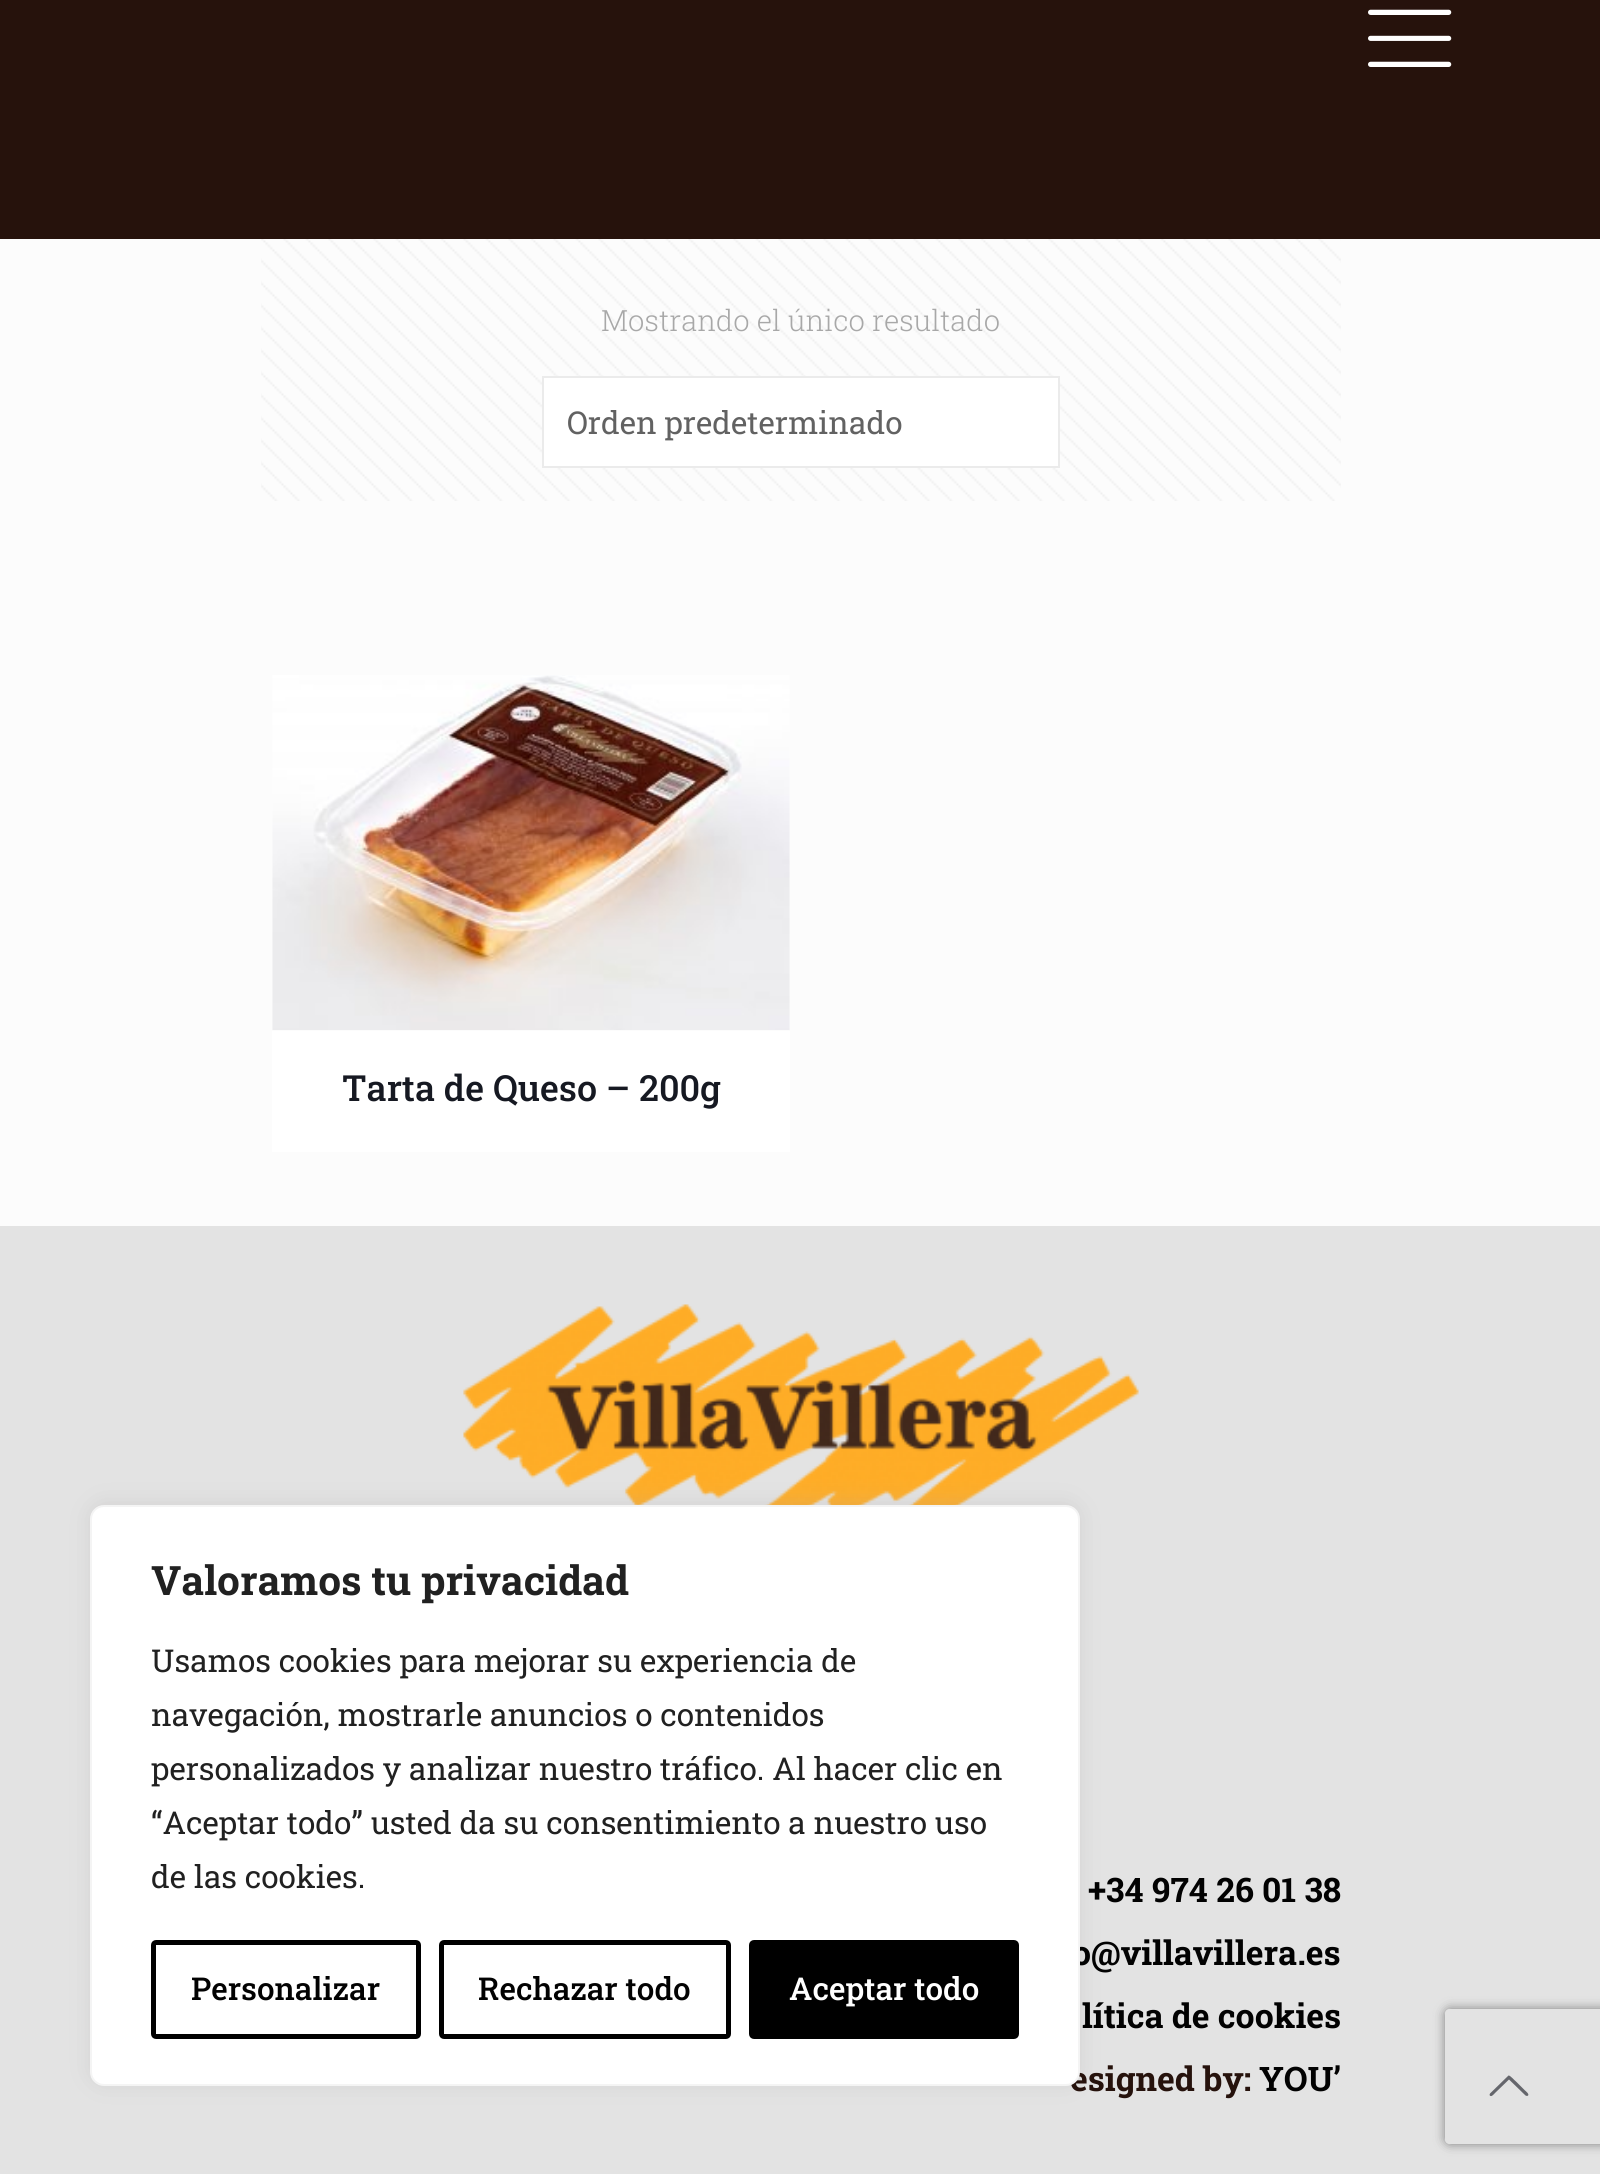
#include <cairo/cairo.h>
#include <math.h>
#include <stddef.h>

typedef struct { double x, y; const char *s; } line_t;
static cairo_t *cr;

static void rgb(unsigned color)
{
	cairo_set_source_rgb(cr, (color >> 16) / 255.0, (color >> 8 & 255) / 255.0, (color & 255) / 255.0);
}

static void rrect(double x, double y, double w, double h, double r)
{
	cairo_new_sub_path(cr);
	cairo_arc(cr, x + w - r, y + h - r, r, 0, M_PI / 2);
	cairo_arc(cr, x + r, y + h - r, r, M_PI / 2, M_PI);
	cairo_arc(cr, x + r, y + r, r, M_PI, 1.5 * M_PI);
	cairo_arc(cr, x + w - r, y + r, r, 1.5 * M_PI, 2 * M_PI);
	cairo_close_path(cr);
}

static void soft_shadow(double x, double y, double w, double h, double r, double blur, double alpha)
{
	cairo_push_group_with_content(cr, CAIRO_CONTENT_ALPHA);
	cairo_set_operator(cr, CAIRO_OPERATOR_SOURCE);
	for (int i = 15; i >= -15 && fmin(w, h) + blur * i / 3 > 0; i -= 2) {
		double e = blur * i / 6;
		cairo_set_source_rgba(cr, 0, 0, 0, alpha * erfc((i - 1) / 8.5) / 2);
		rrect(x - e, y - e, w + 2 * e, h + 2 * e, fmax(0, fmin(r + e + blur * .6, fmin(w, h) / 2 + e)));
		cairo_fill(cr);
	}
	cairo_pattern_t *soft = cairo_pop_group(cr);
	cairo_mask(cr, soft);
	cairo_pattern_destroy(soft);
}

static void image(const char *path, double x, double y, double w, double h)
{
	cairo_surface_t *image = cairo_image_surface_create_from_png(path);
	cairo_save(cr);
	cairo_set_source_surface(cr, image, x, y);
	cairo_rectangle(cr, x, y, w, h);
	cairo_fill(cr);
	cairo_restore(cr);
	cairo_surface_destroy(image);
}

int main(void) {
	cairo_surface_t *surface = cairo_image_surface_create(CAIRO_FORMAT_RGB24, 1600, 2174);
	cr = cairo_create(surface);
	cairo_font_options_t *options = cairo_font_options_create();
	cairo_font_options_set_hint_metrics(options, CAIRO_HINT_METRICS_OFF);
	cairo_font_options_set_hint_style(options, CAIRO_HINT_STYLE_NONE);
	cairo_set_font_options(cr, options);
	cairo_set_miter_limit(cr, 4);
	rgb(0xfcfcfc);
	cairo_paint(cr);
	rgb(0x26120c);
	cairo_rectangle(cr, 0, 0, 1600, 239);
	cairo_fill(cr);
	image("img/1.png", 1368, 9, 84, 58);
	image("img/2.png", 261, 239, 1080, 262);
	rgb(0xffffff);
	cairo_rectangle(cr, 543, 377, 516, 90);
	cairo_fill_preserve(cr);
	rgb(0xebebeb);
	cairo_stroke(cr);
	image("img/3.png", 272, 675, 518, 355);
	rgb(0xffffff);
	cairo_rectangle(cr, 272, 1031, 518, 121);
	cairo_fill(cr);
	rgb(0xe3e3e3);
	cairo_rectangle(cr, 0, 1226, 1600, 948);
	cairo_fill(cr);
	image("img/4.png", 463, 1304, 676, 201);
	rgb(0xacabab);
	soft_shadow(90, 1503, 990, 581, 14, 11, 0.3);
	cairo_save(cr);
	cairo_set_fill_rule(cr, CAIRO_FILL_RULE_EVEN_ODD);
	cairo_new_path(cr);
	cairo_move_to(cr, 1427, 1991);
	cairo_line_to(cr, 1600, 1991);
	cairo_line_to(cr, 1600, 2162);
	cairo_line_to(cr, 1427, 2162);
	cairo_close_path(cr);
	cairo_move_to(cr, 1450, 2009);
	cairo_line_to(cr, 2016, 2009);
	cairo_curve_to(cr, 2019, 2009, 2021, 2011, 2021, 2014);
	cairo_line_to(cr, 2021, 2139);
	cairo_curve_to(cr, 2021, 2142, 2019, 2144, 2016, 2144);
	cairo_line_to(cr, 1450, 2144);
	cairo_curve_to(cr, 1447, 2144, 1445, 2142, 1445, 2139);
	cairo_line_to(cr, 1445, 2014);
	cairo_curve_to(cr, 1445, 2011, 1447, 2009, 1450, 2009);
	cairo_close_path(cr);
	cairo_clip(cr);
	rgb(0x808080);
	soft_shadow(1445, 2009, 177, 135, 5, 5.5, 1);
	cairo_restore(cr);
	rgb(0x65666c);
	cairo_new_path(cr);
	cairo_move_to(cr, 1525.5, 2095.5);
	cairo_line_to(cr, 1509, 2079.5);
	cairo_line_to(cr, 1495, 2093);
	cairo_curve_to(cr, 1494, 2094, 1491, 2098, 1489.5, 2095);
	cairo_line_to(cr, 1490, 2093.5);
	cairo_line_to(cr, 1508.5, 2075.5);
	cairo_curve_to(cr, 1510, 2075, 1515, 2081, 1516, 2081.5);
	cairo_line_to(cr, 1525, 2090.5);
	cairo_curve_to(cr, 1525, 2090.5, 1531, 2095, 1527, 2096);
	cairo_close_path(cr);
	cairo_fill(cr);
	cairo_select_font_face(cr, "Roboto Slab Light", CAIRO_FONT_SLANT_NORMAL, CAIRO_FONT_WEIGHT_NORMAL);
	cairo_set_font_size(cr, 29.25);
	rgb(0xa8a8a8);
	cairo_move_to(cr, 601, 331);
	cairo_show_text(cr, "Mostrando el único resultado");
	cairo_select_font_face(cr, "Roboto Slab", CAIRO_FONT_SLANT_NORMAL, CAIRO_FONT_WEIGHT_NORMAL);
	cairo_set_font_size(cr, 31.5);
	rgb(0x626262);
	cairo_move_to(cr, 567, 434);
	cairo_show_text(cr, "Orden predeterminado");
	cairo_select_font_face(cr, "Roboto Slab Medium", CAIRO_FONT_SLANT_NORMAL, CAIRO_FONT_WEIGHT_NORMAL);
	cairo_set_font_size(cr, 36);
	rgb(0x161922);
	cairo_move_to(cr, 342, 1101);
	cairo_show_text(cr, "Tarta de Queso – 200g");
	cairo_select_font_face(cr, "Roboto Slab", CAIRO_FONT_SLANT_NORMAL, CAIRO_FONT_WEIGHT_BOLD);
	cairo_set_font_size(cr, 33.75);
	rgb(0x020202);
	{
		static const line_t items[] = {
			{1088, 1902, "+34 974 26 01 38"},
			{1072, 1965, "o@villavillera.es"},
			{1082, 2028, "lítica de cookies"},
		};
		for (size_t i = 0; i < sizeof items / sizeof *items; i++) {
			cairo_move_to(cr, items[i].x, items[i].y);
			cairo_show_text(cr, items[i].s);
		}
	}
	rgb(0x26120c);
	cairo_move_to(cr, 1070, 2091);
	cairo_show_text(cr, "esigned by:");
	rgb(0x020202);
	cairo_move_to(cr, 1259, 2091);
	cairo_show_text(cr, "YOU’");
	rgb(0xffffff);
	rrect(91, 1506, 988, 579, 13);
	cairo_fill_preserve(cr);
	rgb(0xf4f4f4);
	cairo_stroke(cr);
	cairo_set_font_size(cr, 40.5);
	rgb(0x212121);
	cairo_move_to(cr, 151, 1595);
	cairo_show_text(cr, "Valoramos tu privacidad");
	cairo_select_font_face(cr, "Roboto Slab", CAIRO_FONT_SLANT_NORMAL, CAIRO_FONT_WEIGHT_NORMAL);
	cairo_set_font_size(cr, 31.5);
	{
		static const line_t items[] = {
			{151, 1672, "Usamos cookies para mejorar su experiencia de"},
			{151, 1726, "navegación, mostrarle anuncios o contenidos"},
			{151, 1780, "personalizados y analizar nuestro tráfico. Al hacer clic en"},
			{151, 1834, "“Aceptar todo” usted da su consentimiento a nuestro uso"},
			{151, 1888, "de las cookies."},
		};
		for (size_t i = 0; i < sizeof items / sizeof *items; i++) {
			cairo_move_to(cr, items[i].x, items[i].y);
			cairo_show_text(cr, items[i].s);
		}
	}
	rrect(153.5, 1942.5, 265, 94, 2.5);
	rgb(0x000000);
	cairo_set_line_width(cr, 5);
	cairo_stroke(cr);
	cairo_select_font_face(cr, "Roboto Slab Medium", CAIRO_FONT_SLANT_NORMAL, CAIRO_FONT_WEIGHT_NORMAL);
	rgb(0x020202);
	cairo_move_to(cr, 191, 2000);
	cairo_show_text(cr, "Personalizar");
	rrect(441.5, 1942.5, 287, 94, 2.5);
	rgb(0x000000);
	cairo_stroke(cr);
	rgb(0x020202);
	cairo_move_to(cr, 478, 2000);
	cairo_show_text(cr, "Rechazar todo");
	rgb(0x000000);
	rrect(751.5, 1942.5, 265, 94, 2.5);
	cairo_fill_preserve(cr);
	cairo_stroke(cr);
	rgb(0xffffff);
	cairo_move_to(cr, 789, 2000);
	cairo_show_text(cr, "Aceptar todo");
	cairo_surface_write_to_png(surface, "page.png");
	cairo_font_options_destroy(options);
	cairo_destroy(cr);
	cairo_surface_destroy(surface);
	return 0;
}
